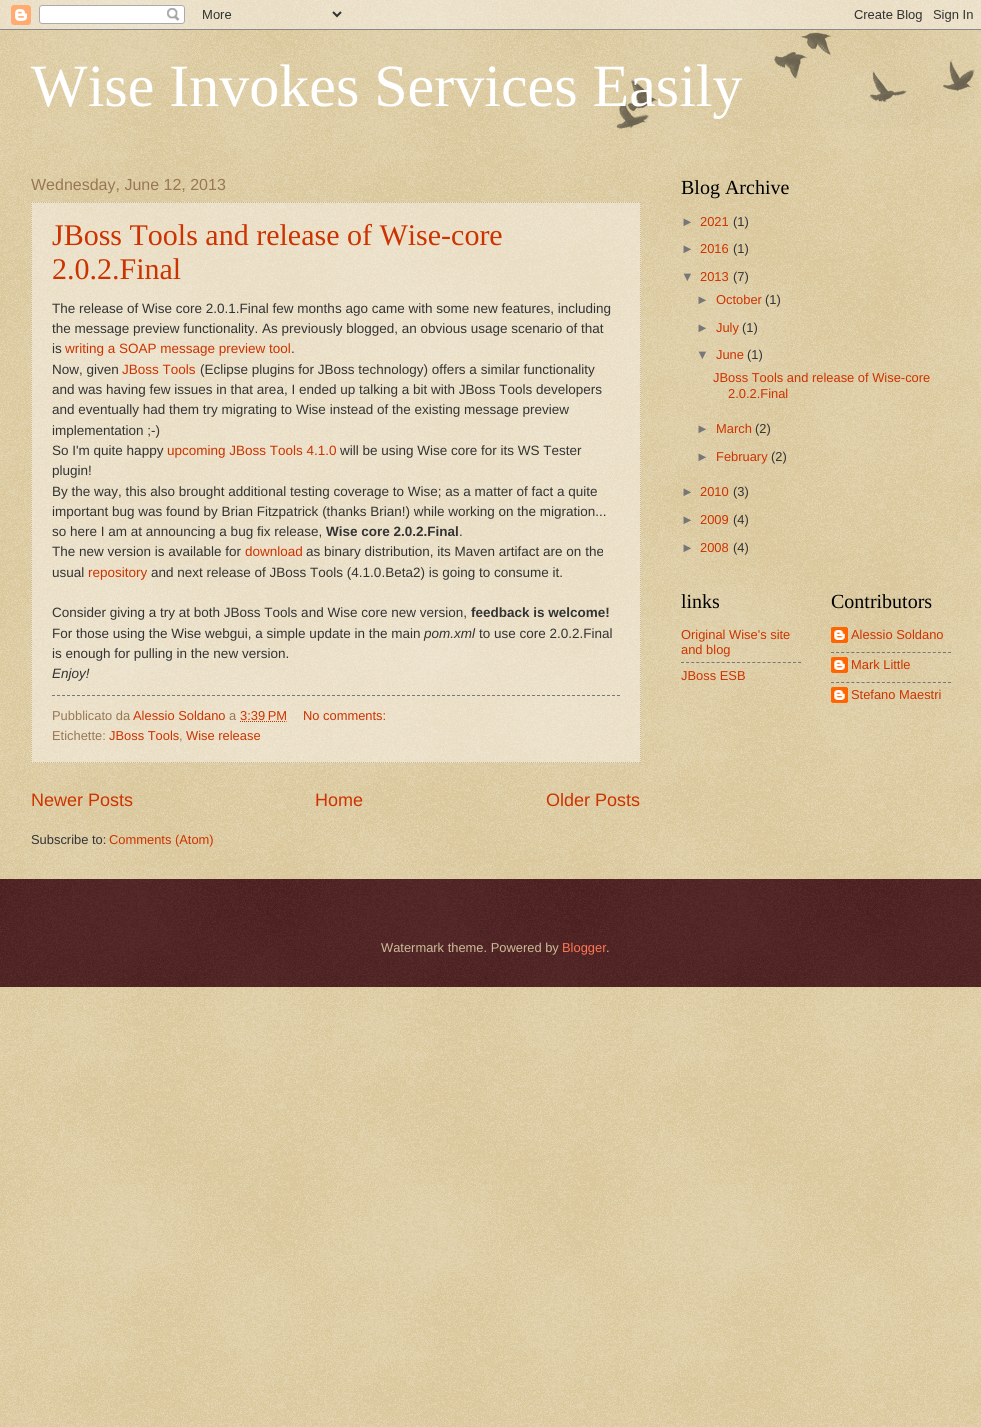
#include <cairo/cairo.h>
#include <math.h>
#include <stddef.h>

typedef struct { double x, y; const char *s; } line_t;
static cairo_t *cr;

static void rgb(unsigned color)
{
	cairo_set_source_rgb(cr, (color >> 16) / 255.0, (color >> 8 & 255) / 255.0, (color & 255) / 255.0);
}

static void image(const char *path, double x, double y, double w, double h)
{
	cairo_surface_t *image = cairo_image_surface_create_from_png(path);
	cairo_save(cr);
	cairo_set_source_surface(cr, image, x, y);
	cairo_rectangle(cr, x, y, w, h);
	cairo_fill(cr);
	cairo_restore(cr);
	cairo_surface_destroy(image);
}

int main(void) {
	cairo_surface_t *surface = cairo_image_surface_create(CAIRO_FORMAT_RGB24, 981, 1427);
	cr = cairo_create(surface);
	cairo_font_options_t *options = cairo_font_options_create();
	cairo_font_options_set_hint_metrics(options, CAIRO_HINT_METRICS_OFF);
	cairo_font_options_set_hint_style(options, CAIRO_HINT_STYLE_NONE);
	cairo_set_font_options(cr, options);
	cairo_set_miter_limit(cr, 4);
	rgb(0xc0a154);
	cairo_paint(cr);
	image("img/1.png", 0, 0, 981, 1427);
	image("img/2.png", 0, 0, 981, 30);
	image("img/3.png", 616, 32, 359, 97);
	cairo_set_source_rgba(cr, 1, 1, 1, 0.4);
	cairo_rectangle(cr, 31, 202, 610, 561);
	cairo_fill(cr);
	cairo_new_path(cr);
	cairo_move_to(cr, 31, 202.5);
	cairo_line_to(cr, 641, 202.5);
	rgb(0xccbb99);
	cairo_set_line_width(cr, 1);
	cairo_set_dash(cr, (double[]){1, 1}, 2, 0);
	cairo_stroke(cr);
	cairo_new_path(cr);
	cairo_move_to(cr, 640.5, 202);
	cairo_line_to(cr, 640.5, 763);
	cairo_stroke(cr);
	cairo_new_path(cr);
	cairo_move_to(cr, 31, 762.5);
	cairo_line_to(cr, 641, 762.5);
	cairo_stroke(cr);
	cairo_new_path(cr);
	cairo_move_to(cr, 31.5, 202);
	cairo_line_to(cr, 31.5, 763);
	cairo_stroke(cr);
	cairo_new_path(cr);
	cairo_move_to(cr, 52, 695.5);
	cairo_line_to(cr, 620, 695.5);
	rgb(0x777777);
	cairo_set_dash(cr, (double[]){3, 2}, 2, 0);
	cairo_stroke(cr);
	cairo_new_path(cr);
	cairo_move_to(cr, 240, 721.5);
	cairo_line_to(cr, 286.5, 721.5);
	rgb(0xcc3300);
	cairo_set_dash(cr, (double[]){1, 1}, 2, 0);
	cairo_stroke(cr);
	cairo_new_path(cr);
	cairo_move_to(cr, 681, 662.5);
	cairo_line_to(cr, 801, 662.5);
	rgb(0x777777);
	cairo_set_dash(cr, (double[]){3, 2.09}, 2, 0);
	cairo_stroke(cr);
	image("img/4.png", 831, 627, 17, 16);
	cairo_new_path(cr);
	cairo_move_to(cr, 831, 652.5);
	cairo_line_to(cr, 951, 652.5);
	cairo_stroke(cr);
	image("img/5.png", 831, 657, 17, 16);
	cairo_new_path(cr);
	cairo_move_to(cr, 831, 682.5);
	cairo_line_to(cr, 951, 682.5);
	cairo_stroke(cr);
	image("img/6.png", 831, 687, 17, 16);
	rgb(0x330000);
	cairo_rectangle(cr, 0, 879, 981, 108);
	cairo_fill(cr);
	image("img/7.png", 0, 879, 981, 108);
	cairo_select_font_face(cr, "Liberation Serif", CAIRO_FONT_SLANT_NORMAL, CAIRO_FONT_WEIGHT_NORMAL);
	cairo_set_font_size(cr, 60);
	rgb(0xffffff);
	cairo_move_to(cr, 31, 106);
	cairo_show_text(cr, "Wise Invokes Services Easily");
	cairo_select_font_face(cr, "Liberation Sans", CAIRO_FONT_SLANT_NORMAL, CAIRO_FONT_WEIGHT_NORMAL);
	cairo_set_font_size(cr, 16);
	rgb(0x997755);
	cairo_move_to(cr, 31, 190);
	cairo_show_text(cr, "Wednesday, June 12, 2013");
	cairo_select_font_face(cr, "Liberation Serif", CAIRO_FONT_SLANT_NORMAL, CAIRO_FONT_WEIGHT_NORMAL);
	cairo_set_font_size(cr, 30);
	rgb(0xcc3300);
	cairo_move_to(cr, 52, 245);
	cairo_show_text(cr, "JBoss Tools and release of Wise-core");
	cairo_move_to(cr, 52, 279);
	cairo_show_text(cr, "2.0.2.Final");
	cairo_select_font_face(cr, "Liberation Sans", CAIRO_FONT_SLANT_NORMAL, CAIRO_FONT_WEIGHT_NORMAL);
	cairo_set_font_size(cr, 13.5);
	rgb(0x333333);
	{
		static const line_t items[] = {
			{52, 313, "The release of Wise core 2.0.1.Final few months ago came with some new features, including"},
			{52, 333, "the message preview functionality. As previously blogged, an obvious usage scenario of that"},
			{52, 353, "is"},
		};
		for (size_t i = 0; i < sizeof items / sizeof *items; i++) {
			cairo_move_to(cr, items[i].x, items[i].y);
			cairo_show_text(cr, items[i].s);
		}
	}
	rgb(0xcc3300);
	cairo_move_to(cr, 65, 353);
	cairo_show_text(cr, "writing a SOAP message preview tool");
	rgb(0x333333);
	cairo_move_to(cr, 291, 353);
	cairo_show_text(cr, ".");
	cairo_move_to(cr, 52, 374);
	cairo_show_text(cr, "Now, given");
	rgb(0xcc3300);
	cairo_move_to(cr, 122, 374);
	cairo_show_text(cr, "JBoss Tools");
	rgb(0x333333);
	{
		static const line_t items[] = {
			{200, 374, "(Eclipse plugins for JBoss technology) offers a similar functionality"},
			{52, 394, "and was having few issues in that area, I ended up talking a bit with JBoss Tools developers"},
			{52, 414, "and eventually had them try migrating to Wise instead of the existing message preview"},
			{52, 435, "implementation ;-)"},
			{52, 455, "So I'm quite happy"},
		};
		for (size_t i = 0; i < sizeof items / sizeof *items; i++) {
			cairo_move_to(cr, items[i].x, items[i].y);
			cairo_show_text(cr, items[i].s);
		}
	}
	rgb(0xcc3300);
	cairo_move_to(cr, 167, 455);
	cairo_show_text(cr, "upcoming JBoss Tools 4.1.0");
	rgb(0x333333);
	{
		static const line_t items[] = {
			{340, 455, "will be using Wise core for its WS Tester"},
			{52, 475, "plugin!"},
			{52, 496, "By the way, this also brought additional testing coverage to Wise; as a matter of fact a quite"},
			{52, 516, "important bug was found by Brian Fitzpatrick (thanks Brian!) while working on the migration..."},
			{52, 536, "so here I am at announcing a bug fix release,"},
		};
		for (size_t i = 0; i < sizeof items / sizeof *items; i++) {
			cairo_move_to(cr, items[i].x, items[i].y);
			cairo_show_text(cr, items[i].s);
		}
	}
	cairo_select_font_face(cr, "Liberation Sans", CAIRO_FONT_SLANT_NORMAL, CAIRO_FONT_WEIGHT_BOLD);
	cairo_move_to(cr, 326, 536);
	cairo_show_text(cr, "Wise core 2.0.2.Final");
	cairo_select_font_face(cr, "Liberation Sans", CAIRO_FONT_SLANT_NORMAL, CAIRO_FONT_WEIGHT_NORMAL);
	cairo_move_to(cr, 459, 536);
	cairo_show_text(cr, ".");
	cairo_move_to(cr, 52, 556);
	cairo_show_text(cr, "The new version is available for");
	rgb(0xcc3300);
	cairo_move_to(cr, 245, 556);
	cairo_show_text(cr, "download");
	rgb(0x333333);
	cairo_move_to(cr, 306, 556);
	cairo_show_text(cr, "as binary distribution, its Maven artifact are on the");
	cairo_move_to(cr, 52, 577);
	cairo_show_text(cr, "usual");
	rgb(0xcc3300);
	cairo_move_to(cr, 88, 577);
	cairo_show_text(cr, "repository");
	rgb(0x333333);
	cairo_move_to(cr, 151, 577);
	cairo_show_text(cr, "and next release of JBoss Tools (4.1.0.Beta2) is going to consume it.");
	cairo_move_to(cr, 52, 617);
	cairo_show_text(cr, "Consider giving a try at both JBoss Tools and Wise core new version,");
	cairo_select_font_face(cr, "Liberation Sans", CAIRO_FONT_SLANT_NORMAL, CAIRO_FONT_WEIGHT_BOLD);
	cairo_move_to(cr, 471, 617);
	cairo_show_text(cr, "feedback is welcome!");
	cairo_select_font_face(cr, "Liberation Sans", CAIRO_FONT_SLANT_NORMAL, CAIRO_FONT_WEIGHT_NORMAL);
	cairo_move_to(cr, 52, 638);
	cairo_show_text(cr, "For those using the Wise webgui, a simple update in the main");
	cairo_select_font_face(cr, "Liberation Sans", CAIRO_FONT_SLANT_ITALIC, CAIRO_FONT_WEIGHT_NORMAL);
	cairo_move_to(cr, 424, 638);
	cairo_show_text(cr, "pom.xml");
	cairo_select_font_face(cr, "Liberation Sans", CAIRO_FONT_SLANT_NORMAL, CAIRO_FONT_WEIGHT_NORMAL);
	cairo_move_to(cr, 479, 638);
	cairo_show_text(cr, "to use core 2.0.2.Final");
	cairo_move_to(cr, 52, 658);
	cairo_show_text(cr, "is enough for pulling in the new version.");
	cairo_select_font_face(cr, "Liberation Sans", CAIRO_FONT_SLANT_ITALIC, CAIRO_FONT_WEIGHT_NORMAL);
	cairo_move_to(cr, 52, 678);
	cairo_show_text(cr, "Enjoy!");
	cairo_select_font_face(cr, "Liberation Sans", CAIRO_FONT_SLANT_NORMAL, CAIRO_FONT_WEIGHT_NORMAL);
	cairo_set_font_size(cr, 12.9);
	rgb(0x997755);
	cairo_move_to(cr, 52, 720);
	cairo_show_text(cr, "Pubblicato da");
	rgb(0xcc3300);
	cairo_move_to(cr, 133, 720);
	cairo_show_text(cr, "Alessio Soldano");
	rgb(0x997755);
	cairo_move_to(cr, 229, 720);
	cairo_show_text(cr, "a");
	rgb(0xcc3300);
	cairo_move_to(cr, 240, 720);
	cairo_show_text(cr, "3:39 PM");
	cairo_move_to(cr, 303, 720);
	cairo_show_text(cr, "No comments:");
	rgb(0x997755);
	cairo_move_to(cr, 52, 740);
	cairo_show_text(cr, "Etichette:");
	rgb(0xcc3300);
	cairo_move_to(cr, 109, 740);
	cairo_show_text(cr, "JBoss Tools");
	rgb(0x997755);
	cairo_move_to(cr, 179, 740);
	cairo_show_text(cr, ",");
	rgb(0xcc3300);
	cairo_move_to(cr, 186, 740);
	cairo_show_text(cr, "Wise release");
	cairo_set_font_size(cr, 18);
	{
		static const line_t items[] = {
			{31, 806, "Newer Posts"},
			{315, 806, "Home"},
			{546, 806, "Older Posts"},
		};
		for (size_t i = 0; i < sizeof items / sizeof *items; i++) {
			cairo_move_to(cr, items[i].x, items[i].y);
			cairo_show_text(cr, items[i].s);
		}
	}
	cairo_set_font_size(cr, 12.9);
	rgb(0x333333);
	cairo_move_to(cr, 31, 844);
	cairo_show_text(cr, "Subscribe to:");
	rgb(0xcc3300);
	cairo_move_to(cr, 109, 844);
	cairo_show_text(cr, "Comments (Atom)");
	cairo_select_font_face(cr, "Liberation Serif", CAIRO_FONT_SLANT_NORMAL, CAIRO_FONT_WEIGHT_NORMAL);
	cairo_set_font_size(cr, 20);
	rgb(0x000000);
	cairo_move_to(cr, 681, 194);
	cairo_show_text(cr, "Blog Archive");
	cairo_select_font_face(cr, "Liberation Sans", CAIRO_FONT_SLANT_NORMAL, CAIRO_FONT_WEIGHT_NORMAL);
	cairo_set_font_size(cr, 12.9);
	rgb(0x777777);
	cairo_move_to(cr, 681, 226);
	cairo_show_text(cr, "►");
	rgb(0xcc3300);
	cairo_move_to(cr, 700, 226);
	cairo_show_text(cr, "2021");
	rgb(0x333333);
	cairo_move_to(cr, 733, 226);
	cairo_show_text(cr, "(1)");
	rgb(0x777777);
	cairo_move_to(cr, 681, 253);
	cairo_show_text(cr, "►");
	rgb(0xcc3300);
	cairo_move_to(cr, 700, 253);
	cairo_show_text(cr, "2016");
	rgb(0x333333);
	cairo_move_to(cr, 733, 253);
	cairo_show_text(cr, "(1)");
	rgb(0x777777);
	cairo_move_to(cr, 681, 281);
	cairo_show_text(cr, "▼");
	rgb(0xcc3300);
	cairo_move_to(cr, 700, 281);
	cairo_show_text(cr, "2013");
	rgb(0x333333);
	cairo_move_to(cr, 733, 281);
	cairo_show_text(cr, "(7)");
	rgb(0x777777);
	cairo_move_to(cr, 696, 304);
	cairo_show_text(cr, "►");
	rgb(0xcc3300);
	cairo_move_to(cr, 716, 304);
	cairo_show_text(cr, "October");
	rgb(0x333333);
	cairo_move_to(cr, 765, 304);
	cairo_show_text(cr, "(1)");
	rgb(0x777777);
	cairo_move_to(cr, 696, 332);
	cairo_show_text(cr, "►");
	rgb(0xcc3300);
	cairo_move_to(cr, 716, 332);
	cairo_show_text(cr, "July");
	rgb(0x333333);
	cairo_move_to(cr, 742, 332);
	cairo_show_text(cr, "(1)");
	rgb(0x777777);
	cairo_move_to(cr, 696, 359);
	cairo_show_text(cr, "▼");
	rgb(0xcc3300);
	cairo_move_to(cr, 716, 359);
	cairo_show_text(cr, "June");
	rgb(0x333333);
	cairo_move_to(cr, 747, 359);
	cairo_show_text(cr, "(1)");
	rgb(0xcc3300);
	cairo_move_to(cr, 713, 382);
	cairo_show_text(cr, "JBoss Tools and release of Wise-core");
	cairo_move_to(cr, 728, 398);
	cairo_show_text(cr, "2.0.2.Final");
	rgb(0x777777);
	cairo_move_to(cr, 696, 433);
	cairo_show_text(cr, "►");
	rgb(0xcc3300);
	cairo_move_to(cr, 716, 433);
	cairo_show_text(cr, "March");
	rgb(0x333333);
	cairo_move_to(cr, 755, 433);
	cairo_show_text(cr, "(2)");
	rgb(0x777777);
	cairo_move_to(cr, 696, 461);
	cairo_show_text(cr, "►");
	rgb(0xcc3300);
	cairo_move_to(cr, 716, 461);
	cairo_show_text(cr, "February");
	rgb(0x333333);
	cairo_move_to(cr, 771, 461);
	cairo_show_text(cr, "(2)");
	rgb(0x777777);
	cairo_move_to(cr, 681, 496);
	cairo_show_text(cr, "►");
	rgb(0xcc3300);
	cairo_move_to(cr, 700, 496);
	cairo_show_text(cr, "2010");
	rgb(0x333333);
	cairo_move_to(cr, 733, 496);
	cairo_show_text(cr, "(3)");
	rgb(0x777777);
	cairo_move_to(cr, 681, 524);
	cairo_show_text(cr, "►");
	rgb(0xcc3300);
	cairo_move_to(cr, 700, 524);
	cairo_show_text(cr, "2009");
	rgb(0x333333);
	cairo_move_to(cr, 733, 524);
	cairo_show_text(cr, "(4)");
	rgb(0x777777);
	cairo_move_to(cr, 681, 552);
	cairo_show_text(cr, "►");
	rgb(0xcc3300);
	cairo_move_to(cr, 700, 552);
	cairo_show_text(cr, "2008");
	rgb(0x333333);
	cairo_move_to(cr, 733, 552);
	cairo_show_text(cr, "(4)");
	cairo_select_font_face(cr, "Liberation Serif", CAIRO_FONT_SLANT_NORMAL, CAIRO_FONT_WEIGHT_NORMAL);
	cairo_set_font_size(cr, 20);
	rgb(0x000000);
	cairo_move_to(cr, 681, 608);
	cairo_show_text(cr, "links");
	cairo_select_font_face(cr, "Liberation Sans", CAIRO_FONT_SLANT_NORMAL, CAIRO_FONT_WEIGHT_NORMAL);
	cairo_set_font_size(cr, 12.9);
	rgb(0xcc3300);
	{
		static const line_t items[] = {
			{681, 639, "Original Wise's site"},
			{681, 654, "and blog"},
			{681, 680, "JBoss ESB"},
		};
		for (size_t i = 0; i < sizeof items / sizeof *items; i++) {
			cairo_move_to(cr, items[i].x, items[i].y);
			cairo_show_text(cr, items[i].s);
		}
	}
	cairo_select_font_face(cr, "Liberation Serif", CAIRO_FONT_SLANT_NORMAL, CAIRO_FONT_WEIGHT_NORMAL);
	cairo_set_font_size(cr, 20);
	rgb(0x000000);
	cairo_move_to(cr, 831, 608);
	cairo_show_text(cr, "Contributors");
	cairo_select_font_face(cr, "Liberation Sans", CAIRO_FONT_SLANT_NORMAL, CAIRO_FONT_WEIGHT_NORMAL);
	cairo_set_font_size(cr, 12.9);
	rgb(0xcc3300);
	{
		static const line_t items[] = {
			{851, 639, "Alessio Soldano"},
			{851, 669, "Mark Little"},
			{851, 699, "Stefano Maestri"},
		};
		for (size_t i = 0; i < sizeof items / sizeof *items; i++) {
			cairo_move_to(cr, items[i].x, items[i].y);
			cairo_show_text(cr, items[i].s);
		}
	}
	rgb(0xccbb99);
	cairo_move_to(cr, 381, 952);
	cairo_show_text(cr, "Watermark theme. Powered by");
	rgb(0xff7755);
	cairo_move_to(cr, 562, 952);
	cairo_show_text(cr, "Blogger");
	rgb(0xccbb99);
	cairo_move_to(cr, 606, 952);
	cairo_show_text(cr, ".");
	cairo_surface_write_to_png(surface, "page.png");
	cairo_font_options_destroy(options);
	cairo_destroy(cr);
	cairo_surface_destroy(surface);
	return 0;
}
